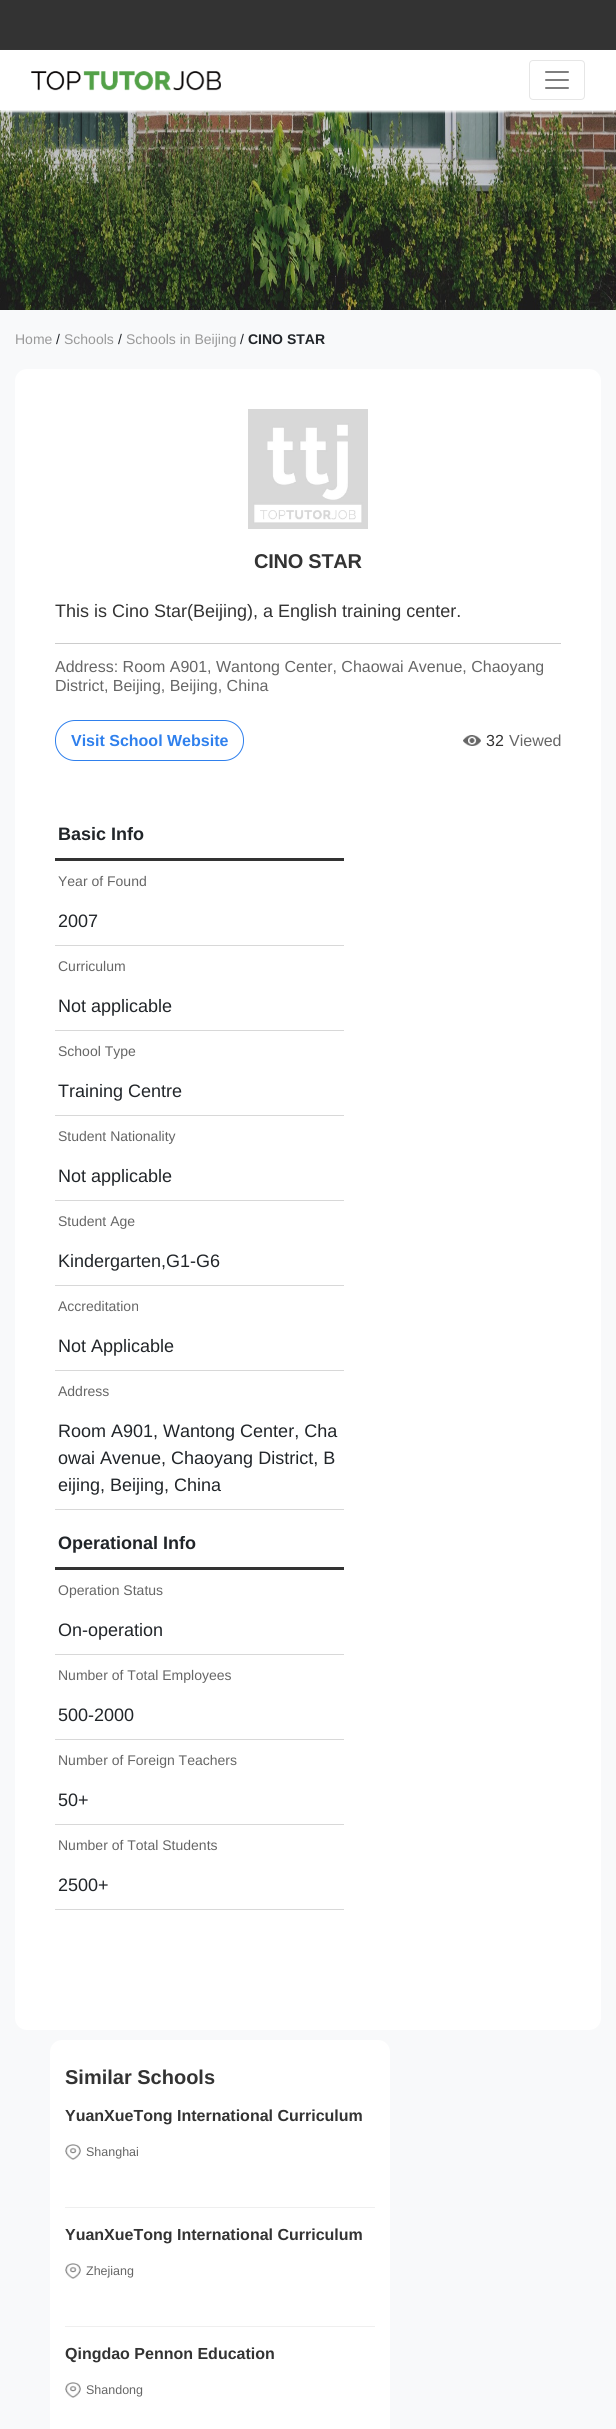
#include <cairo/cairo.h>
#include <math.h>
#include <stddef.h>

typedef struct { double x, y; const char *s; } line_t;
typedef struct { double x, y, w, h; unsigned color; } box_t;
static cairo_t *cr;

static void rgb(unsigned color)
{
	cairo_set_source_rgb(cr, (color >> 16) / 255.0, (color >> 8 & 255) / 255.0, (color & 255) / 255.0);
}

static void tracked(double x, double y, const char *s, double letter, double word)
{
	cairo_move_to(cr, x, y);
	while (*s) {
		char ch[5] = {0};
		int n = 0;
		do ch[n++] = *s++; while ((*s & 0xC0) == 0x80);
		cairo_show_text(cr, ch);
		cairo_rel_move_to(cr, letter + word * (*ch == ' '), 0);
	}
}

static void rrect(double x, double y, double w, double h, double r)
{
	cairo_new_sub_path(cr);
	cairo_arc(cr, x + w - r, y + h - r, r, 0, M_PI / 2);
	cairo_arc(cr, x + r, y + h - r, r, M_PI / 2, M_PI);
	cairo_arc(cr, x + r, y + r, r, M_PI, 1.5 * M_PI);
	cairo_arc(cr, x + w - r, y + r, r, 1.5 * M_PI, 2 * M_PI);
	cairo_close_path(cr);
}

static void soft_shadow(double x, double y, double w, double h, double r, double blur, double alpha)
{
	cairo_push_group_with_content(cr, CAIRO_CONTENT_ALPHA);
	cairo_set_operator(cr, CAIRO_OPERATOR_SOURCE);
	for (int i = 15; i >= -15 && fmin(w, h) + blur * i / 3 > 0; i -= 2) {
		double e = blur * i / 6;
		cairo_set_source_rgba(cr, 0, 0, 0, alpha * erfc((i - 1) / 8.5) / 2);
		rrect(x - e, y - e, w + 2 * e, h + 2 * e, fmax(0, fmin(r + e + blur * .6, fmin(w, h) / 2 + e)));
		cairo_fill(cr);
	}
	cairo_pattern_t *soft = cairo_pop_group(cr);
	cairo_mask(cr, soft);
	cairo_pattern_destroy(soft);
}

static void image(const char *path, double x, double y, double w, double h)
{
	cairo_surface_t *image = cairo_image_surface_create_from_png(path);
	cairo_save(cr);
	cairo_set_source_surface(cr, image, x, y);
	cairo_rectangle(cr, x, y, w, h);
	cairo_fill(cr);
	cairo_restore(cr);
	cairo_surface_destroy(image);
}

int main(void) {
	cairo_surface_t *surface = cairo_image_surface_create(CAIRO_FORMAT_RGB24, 616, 2429);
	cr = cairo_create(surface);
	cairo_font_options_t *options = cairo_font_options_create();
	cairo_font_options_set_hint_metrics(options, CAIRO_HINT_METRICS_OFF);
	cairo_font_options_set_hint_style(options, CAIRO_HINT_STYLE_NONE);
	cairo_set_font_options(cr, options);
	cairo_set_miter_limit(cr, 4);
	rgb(0xf8f9fa);
	cairo_paint(cr);
	rgb(0x333333);
	cairo_rectangle(cr, 0, 0, 616, 50);
	cairo_fill(cr);
	image("img/3.png", 0, 110, 616, 200);
	rgb(0xf5f5f5);
	soft_shadow(0, 52, 616, 60, 0, 1, 1);
	rgb(0xffffff);
	cairo_rectangle(cr, 0, 50, 616, 60);
	cairo_fill(cr);
	image("img/1.png", 31, 71, 190, 20);
	rrect(529.5, 60.5, 55, 39, 3.5);
	rgb(0xe6e6e6);
	cairo_set_line_width(cr, 1);
	cairo_stroke(cr);
	image("img/2.png", 545, 71, 24, 18);
	rgb(0xffffff);
	rrect(15, 369, 586, 1661, 12);
	cairo_fill(cr);
	image("img/4.png", 248, 409, 120, 120);
	rgb(0xcccccc);
	cairo_rectangle(cr, 55, 643, 506, 1);
	cairo_fill(cr);
	rrect(55.5, 720.5, 188, 40, 19.5);
	rgb(0x2f80ed);
	cairo_stroke(cr);
	image("img/5.png", 463, 735, 18, 11);
	{
		static const box_t items[] = {
			{55, 858, 289, 3, 0x333333},
			{55, 945, 289, 1, 0xd8d8d8},
			{55, 1030, 289, 1, 0xd8d8d8},
			{55, 1115, 289, 1, 0xd8d8d8},
			{55, 1200, 289, 1, 0xd8d8d8},
			{55, 1285, 289, 1, 0xd8d8d8},
			{55, 1370, 289, 1, 0xd8d8d8},
			{55, 1509, 289, 1, 0xd8d8d8},
			{55, 1567, 289, 3, 0x333333},
			{55, 1654, 289, 1, 0xd8d8d8},
			{55, 1739, 289, 1, 0xd8d8d8},
			{55, 1824, 289, 1, 0xd8d8d8},
			{55, 1909, 289, 1, 0xd8d8d8},
		};
		for (size_t i = 0; i < sizeof items / sizeof *items; i++) {
			rgb(items[i].color);
			cairo_rectangle(cr, items[i].x, items[i].y, items[i].w, items[i].h);
			cairo_fill(cr);
		}
	}
	rgb(0xffffff);
	rrect(50, 2040, 340, 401, 12);
	cairo_fill(cr);
	rgb(0xefefef);
	cairo_rectangle(cr, 65, 2207, 310, 1);
	cairo_fill(cr);
	image("img/6.png", 65, 2144, 16, 16);
	cairo_rectangle(cr, 65, 2326, 310, 1);
	cairo_fill(cr);
	image("img/6.png", 65, 2263, 16, 16);
	image("img/6.png", 65, 2382, 16, 16);
	cairo_select_font_face(cr, "Liberation Sans", CAIRO_FONT_SLANT_NORMAL, CAIRO_FONT_WEIGHT_NORMAL);
	cairo_set_font_size(cr, 14);
	rgb(0x999999);
	cairo_move_to(cr, 15, 344);
	cairo_show_text(cr, "Home");
	rgb(0x212529);
	cairo_move_to(cr, 56, 344);
	cairo_show_text(cr, "/");
	rgb(0x999999);
	cairo_move_to(cr, 64, 344);
	cairo_show_text(cr, "Schools");
	rgb(0x212529);
	cairo_move_to(cr, 118, 344);
	cairo_show_text(cr, "/");
	rgb(0x999999);
	cairo_move_to(cr, 126, 344);
	cairo_show_text(cr, "Schools in Beijing");
	rgb(0x212529);
	cairo_move_to(cr, 240, 344);
	cairo_show_text(cr, "/");
	cairo_select_font_face(cr, "Liberation Sans", CAIRO_FONT_SLANT_NORMAL, CAIRO_FONT_WEIGHT_BOLD);
	cairo_move_to(cr, 248, 344);
	cairo_show_text(cr, "CINO STAR");
	cairo_set_font_size(cr, 20);
	rgb(0x333333);
	tracked(254, 568, "CINO STAR", -0.25, 0);
	cairo_select_font_face(cr, "Liberation Sans", CAIRO_FONT_SLANT_NORMAL, CAIRO_FONT_WEIGHT_NORMAL);
	cairo_set_font_size(cr, 18);
	cairo_move_to(cr, 55, 617);
	cairo_show_text(cr, "This is Cino Star(Beijing), a English training center.");
	cairo_set_font_size(cr, 16);
	rgb(0x666666);
	cairo_move_to(cr, 55, 672);
	cairo_show_text(cr, "Address: Room A901, Wantong Center, Chaowai Avenue, Chaoyang");
	cairo_move_to(cr, 55, 691);
	cairo_show_text(cr, "District, Beijing, Beijing, China");
	cairo_select_font_face(cr, "Liberation Sans", CAIRO_FONT_SLANT_NORMAL, CAIRO_FONT_WEIGHT_BOLD);
	rgb(0x2f80ed);
	cairo_move_to(cr, 71, 746);
	cairo_show_text(cr, "Visit School Website");
	cairo_select_font_face(cr, "Liberation Sans", CAIRO_FONT_SLANT_NORMAL, CAIRO_FONT_WEIGHT_NORMAL);
	rgb(0x333333);
	cairo_move_to(cr, 486, 746);
	cairo_show_text(cr, "32");
	rgb(0x666666);
	cairo_move_to(cr, 509, 746);
	cairo_show_text(cr, "Viewed");
	cairo_select_font_face(cr, "Liberation Sans", CAIRO_FONT_SLANT_NORMAL, CAIRO_FONT_WEIGHT_BOLD);
	cairo_set_font_size(cr, 18);
	rgb(0x212529);
	cairo_move_to(cr, 58, 840);
	cairo_show_text(cr, "Basic Info");
	cairo_select_font_face(cr, "Liberation Sans", CAIRO_FONT_SLANT_NORMAL, CAIRO_FONT_WEIGHT_NORMAL);
	cairo_set_font_size(cr, 14);
	rgb(0x666666);
	cairo_move_to(cr, 58, 886);
	cairo_show_text(cr, "Year of Found");
	cairo_set_font_size(cr, 18);
	rgb(0x212529);
	cairo_move_to(cr, 58, 927);
	cairo_show_text(cr, "2007");
	cairo_set_font_size(cr, 14);
	rgb(0x666666);
	cairo_move_to(cr, 58, 971);
	cairo_show_text(cr, "Curriculum");
	cairo_set_font_size(cr, 18);
	rgb(0x212529);
	cairo_move_to(cr, 58, 1012);
	cairo_show_text(cr, "Not applicable");
	cairo_set_font_size(cr, 14);
	rgb(0x666666);
	cairo_move_to(cr, 58, 1056);
	cairo_show_text(cr, "School Type");
	cairo_set_font_size(cr, 18);
	rgb(0x212529);
	cairo_move_to(cr, 58, 1097);
	cairo_show_text(cr, "Training Centre");
	cairo_set_font_size(cr, 14);
	rgb(0x666666);
	cairo_move_to(cr, 58, 1141);
	cairo_show_text(cr, "Student Nationality");
	cairo_set_font_size(cr, 18);
	rgb(0x212529);
	cairo_move_to(cr, 58, 1182);
	cairo_show_text(cr, "Not applicable");
	cairo_set_font_size(cr, 14);
	rgb(0x666666);
	cairo_move_to(cr, 58, 1226);
	cairo_show_text(cr, "Student Age");
	cairo_set_font_size(cr, 18);
	rgb(0x212529);
	cairo_move_to(cr, 58, 1267);
	cairo_show_text(cr, "Kindergarten,G1-G6");
	cairo_set_font_size(cr, 14);
	rgb(0x666666);
	cairo_move_to(cr, 58, 1311);
	cairo_show_text(cr, "Accreditation");
	cairo_set_font_size(cr, 18);
	rgb(0x212529);
	cairo_move_to(cr, 58, 1352);
	cairo_show_text(cr, "Not Applicable");
	cairo_set_font_size(cr, 14);
	rgb(0x666666);
	cairo_move_to(cr, 58, 1396);
	cairo_show_text(cr, "Address");
	cairo_set_font_size(cr, 18);
	rgb(0x212529);
	{
		static const line_t items[] = {
			{58, 1437, "Room A901, Wantong Center, Cha"},
			{58, 1464, "owai Avenue, Chaoyang District, B"},
			{58, 1491, "eijing, Beijing, China"},
		};
		for (size_t i = 0; i < sizeof items / sizeof *items; i++) {
			cairo_move_to(cr, items[i].x, items[i].y);
			cairo_show_text(cr, items[i].s);
		}
	}
	cairo_select_font_face(cr, "Liberation Sans", CAIRO_FONT_SLANT_NORMAL, CAIRO_FONT_WEIGHT_BOLD);
	cairo_move_to(cr, 58, 1549);
	cairo_show_text(cr, "Operational Info");
	cairo_select_font_face(cr, "Liberation Sans", CAIRO_FONT_SLANT_NORMAL, CAIRO_FONT_WEIGHT_NORMAL);
	cairo_set_font_size(cr, 14);
	rgb(0x666666);
	cairo_move_to(cr, 58, 1595);
	cairo_show_text(cr, "Operation Status");
	cairo_set_font_size(cr, 18);
	rgb(0x212529);
	cairo_move_to(cr, 58, 1636);
	cairo_show_text(cr, "On-operation");
	cairo_set_font_size(cr, 14);
	rgb(0x666666);
	cairo_move_to(cr, 58, 1680);
	cairo_show_text(cr, "Number of Total Employees");
	cairo_set_font_size(cr, 18);
	rgb(0x212529);
	cairo_move_to(cr, 58, 1721);
	cairo_show_text(cr, "500-2000");
	cairo_set_font_size(cr, 14);
	rgb(0x666666);
	cairo_move_to(cr, 58, 1765);
	cairo_show_text(cr, "Number of Foreign Teachers");
	cairo_set_font_size(cr, 18);
	rgb(0x212529);
	cairo_move_to(cr, 58, 1806);
	cairo_show_text(cr, "50+");
	cairo_set_font_size(cr, 14);
	rgb(0x666666);
	cairo_move_to(cr, 58, 1850);
	cairo_show_text(cr, "Number of Total Students");
	cairo_set_font_size(cr, 18);
	rgb(0x212529);
	cairo_move_to(cr, 58, 1891);
	cairo_show_text(cr, "2500+");
	cairo_select_font_face(cr, "Liberation Sans", CAIRO_FONT_SLANT_NORMAL, CAIRO_FONT_WEIGHT_BOLD);
	cairo_set_font_size(cr, 20);
	rgb(0x333333);
	cairo_move_to(cr, 65, 2084);
	cairo_show_text(cr, "Similar Schools");
	cairo_set_font_size(cr, 16);
	cairo_move_to(cr, 65, 2121);
	cairo_show_text(cr, "YuanXueTong International Curriculum");
	cairo_select_font_face(cr, "Liberation Sans", CAIRO_FONT_SLANT_NORMAL, CAIRO_FONT_WEIGHT_NORMAL);
	cairo_set_font_size(cr, 12.5);
	rgb(0x666666);
	cairo_move_to(cr, 86, 2156);
	cairo_show_text(cr, "Shanghai");
	cairo_select_font_face(cr, "Liberation Sans", CAIRO_FONT_SLANT_NORMAL, CAIRO_FONT_WEIGHT_BOLD);
	cairo_set_font_size(cr, 16);
	rgb(0x333333);
	cairo_move_to(cr, 65, 2240);
	cairo_show_text(cr, "YuanXueTong International Curriculum");
	cairo_select_font_face(cr, "Liberation Sans", CAIRO_FONT_SLANT_NORMAL, CAIRO_FONT_WEIGHT_NORMAL);
	cairo_set_font_size(cr, 12.5);
	rgb(0x666666);
	cairo_move_to(cr, 86, 2275);
	cairo_show_text(cr, "Zhejiang");
	cairo_select_font_face(cr, "Liberation Sans", CAIRO_FONT_SLANT_NORMAL, CAIRO_FONT_WEIGHT_BOLD);
	cairo_set_font_size(cr, 16);
	rgb(0x333333);
	cairo_move_to(cr, 65, 2359);
	cairo_show_text(cr, "Qingdao Pennon Education");
	cairo_select_font_face(cr, "Liberation Sans", CAIRO_FONT_SLANT_NORMAL, CAIRO_FONT_WEIGHT_NORMAL);
	cairo_set_font_size(cr, 12.5);
	rgb(0x666666);
	cairo_move_to(cr, 86, 2394);
	cairo_show_text(cr, "Shandong");
	cairo_surface_write_to_png(surface, "page.png");
	cairo_font_options_destroy(options);
	cairo_destroy(cr);
	cairo_surface_destroy(surface);
	return 0;
}
